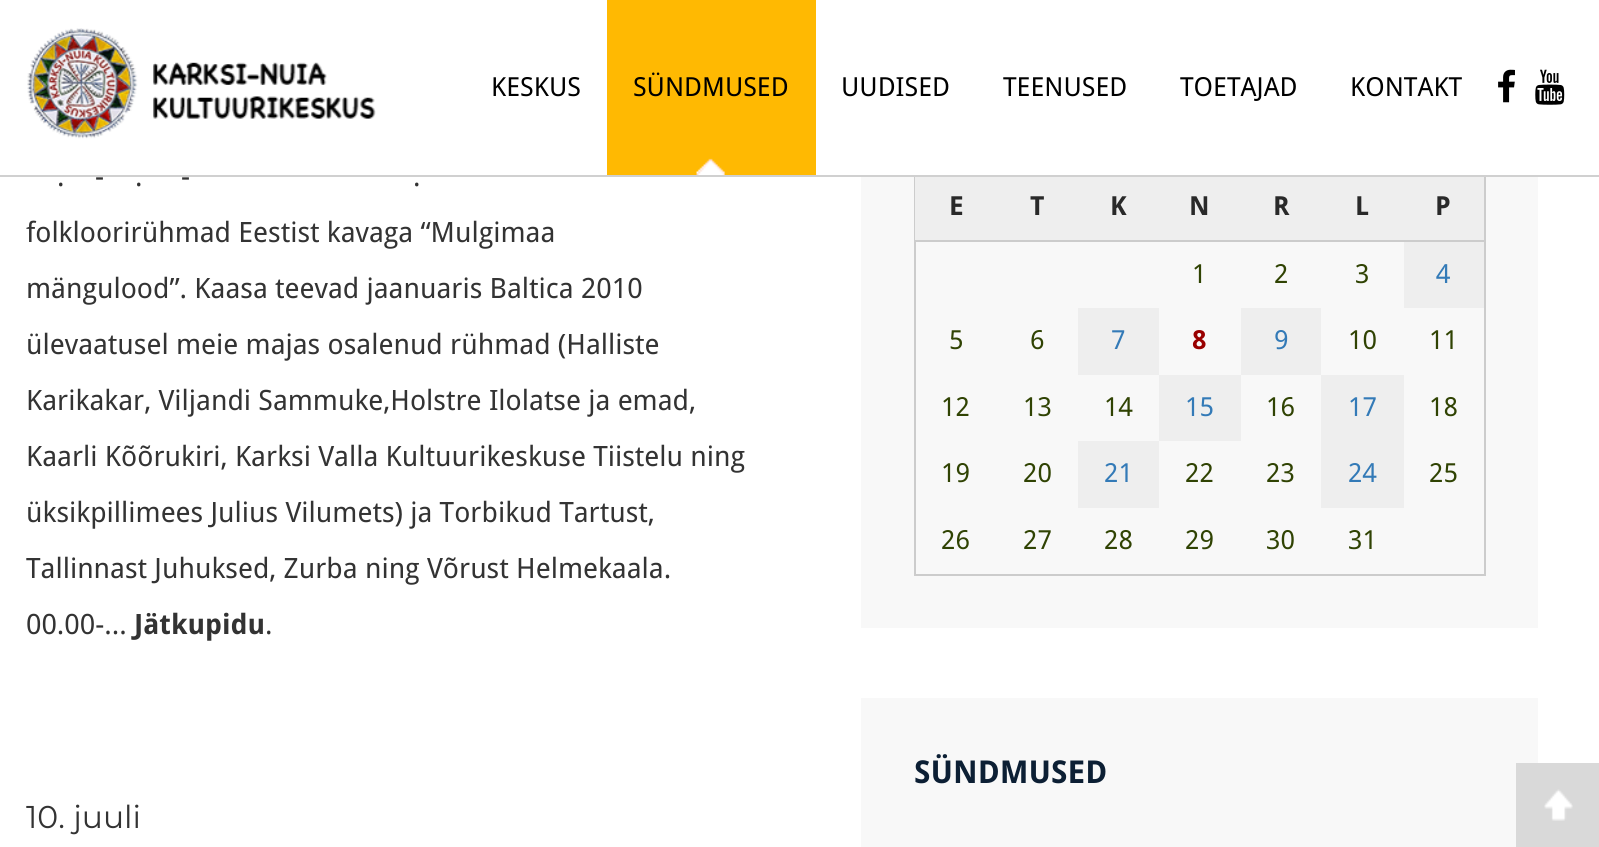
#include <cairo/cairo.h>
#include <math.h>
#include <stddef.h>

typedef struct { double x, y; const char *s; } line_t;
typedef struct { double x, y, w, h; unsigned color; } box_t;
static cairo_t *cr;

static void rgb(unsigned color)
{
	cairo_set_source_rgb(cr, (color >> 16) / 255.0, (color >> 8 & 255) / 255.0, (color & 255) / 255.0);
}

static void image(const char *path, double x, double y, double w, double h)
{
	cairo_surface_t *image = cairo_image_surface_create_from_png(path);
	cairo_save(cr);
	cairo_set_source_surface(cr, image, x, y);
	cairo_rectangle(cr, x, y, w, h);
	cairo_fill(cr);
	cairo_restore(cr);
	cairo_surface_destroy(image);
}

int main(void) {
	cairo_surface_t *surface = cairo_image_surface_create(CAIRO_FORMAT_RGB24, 1599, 847);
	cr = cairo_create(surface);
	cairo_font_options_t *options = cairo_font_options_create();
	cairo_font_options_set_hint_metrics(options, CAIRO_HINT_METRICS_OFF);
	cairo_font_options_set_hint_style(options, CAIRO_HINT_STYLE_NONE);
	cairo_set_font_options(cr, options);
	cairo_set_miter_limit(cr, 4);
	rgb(0xffffff);
	cairo_paint(cr);
	rgb(0xf8f8f8);
	cairo_rectangle(cr, 861, 177, 677, 451);
	cairo_fill(cr);
	cairo_rectangle(cr, 915, 173, 570, 402);
	rgb(0xcccccc);
	cairo_stroke(cr);
	rgb(0xffffff);
	cairo_rectangle(cr, 914, 172, 572, 3);
	cairo_fill(cr);
	rgb(0xd0d0d0);
	cairo_rectangle(cr, 0, 175, 1599, 2);
	cairo_fill(cr);
	image("img/1.png", 27, 28, 349, 111);
	rgb(0xffb902);
	cairo_rectangle(cr, 607, 0, 209, 175);
	cairo_fill(cr);
	image("img/2.png", 696, 158, 29, 17);
	image("img/3.png", 1498, 69, 17, 34);
	image("img/4.png", 1535, 69, 30, 36);
	{
		static const box_t items[] = {
			{915, 177, 569, 63, 0xeeeeee},
			{915, 240, 569, 2, 0xcccccc},
			{1404, 242, 80, 66, 0xeeeeee},
			{1078, 308, 81, 67, 0xeeeeee},
			{1241, 308, 80, 67, 0xeeeeee},
			{1159, 375, 82, 66, 0xeeeeee},
			{1321, 375, 83, 133, 0xeeeeee},
			{1078, 441, 81, 67, 0xeeeeee},
			{861, 698, 677, 149, 0xf8f8f8},
			{1516, 763, 83, 84, 0xd9d9d9},
		};
		for (size_t i = 0; i < sizeof items / sizeof *items; i++) {
			rgb(items[i].color);
			cairo_rectangle(cr, items[i].x, items[i].y, items[i].w, items[i].h);
			cairo_fill(cr);
		}
	}
	image("img/5.png", 1544, 789, 29, 32);
	cairo_select_font_face(cr, "Droid Sans", CAIRO_FONT_SLANT_NORMAL, CAIRO_FONT_WEIGHT_NORMAL);
	cairo_set_font_size(cr, 26.25);
	rgb(0x000000);
	{
		static const line_t items[] = {
			{491, 96, "KESKUS"},
			{633, 96, "SÜNDMUSED"},
			{841, 96, "UUDISED"},
			{1003, 96, "TEENUSED"},
			{1180, 96, "TOETAJAD"},
			{1350, 96, "KONTAKT"},
		};
		for (size_t i = 0; i < sizeof items / sizeof *items; i++) {
			cairo_move_to(cr, items[i].x, items[i].y);
			cairo_show_text(cr, items[i].s);
		}
	}
	cairo_set_font_size(cr, 28);
	rgb(0x333333);
	{
		static const line_t items[] = {
			{95, 186, "-"},
			{181, 186, "-"},
			{57, 186, "."},
			{135, 186, "."},
			{413, 186, "."},
			{26, 242, "folkloorirühmad Eestist kavaga “Mulgimaa"},
			{26, 298, "mängulood”. Kaasa teevad jaanuaris Baltica 2010"},
			{26, 354, "ülevaatusel meie majas osalenud rühmad (Halliste"},
			{26, 410, "Karikakar, Viljandi Sammuke,Holstre Ilolatse ja emad,"},
			{26, 466, "Kaarli Kõõrukiri, Karksi Valla Kultuurikeskuse Tiistelu ning"},
			{26, 522, "üksikpillimees Julius Vilumets) ja Torbikud Tartust,"},
			{26, 578, "Tallinnast Juhuksed, Zurba ning Võrust Helmekaala."},
			{26, 634, "00.00-..."},
		};
		for (size_t i = 0; i < sizeof items / sizeof *items; i++) {
			cairo_move_to(cr, items[i].x, items[i].y);
			cairo_show_text(cr, items[i].s);
		}
	}
	cairo_select_font_face(cr, "Droid Sans", CAIRO_FONT_SLANT_NORMAL, CAIRO_FONT_WEIGHT_BOLD);
	cairo_move_to(cr, 134, 634);
	cairo_show_text(cr, "Jätkupidu");
	cairo_select_font_face(cr, "Droid Sans", CAIRO_FONT_SLANT_NORMAL, CAIRO_FONT_WEIGHT_NORMAL);
	cairo_move_to(cr, 265, 634);
	cairo_show_text(cr, ".");
	cairo_select_font_face(cr, "Montserrat", CAIRO_FONT_SLANT_NORMAL, CAIRO_FONT_WEIGHT_NORMAL);
	cairo_set_font_size(cr, 31.5);
	cairo_move_to(cr, 26, 828);
	cairo_show_text(cr, "10. juuli");
	cairo_select_font_face(cr, "Droid Sans", CAIRO_FONT_SLANT_NORMAL, CAIRO_FONT_WEIGHT_BOLD);
	cairo_set_font_size(cr, 26.25);
	rgb(0x292929);
	{
		static const line_t items[] = {
			{949, 215, "E"},
			{1030, 215, "T"},
			{1110, 215, "K"},
			{1189, 215, "N"},
			{1273, 215, "R"},
			{1355, 215, "L"},
			{1435, 215, "P"},
		};
		for (size_t i = 0; i < sizeof items / sizeof *items; i++) {
			cairo_move_to(cr, items[i].x, items[i].y);
			cairo_show_text(cr, items[i].s);
		}
	}
	cairo_select_font_face(cr, "Droid Sans", CAIRO_FONT_SLANT_NORMAL, CAIRO_FONT_WEIGHT_NORMAL);
	rgb(0x304303);
	{
		static const line_t items[] = {
			{1192, 283, "1"},
			{1274, 283, "2"},
			{1355, 283, "3"},
		};
		for (size_t i = 0; i < sizeof items / sizeof *items; i++) {
			cairo_move_to(cr, items[i].x, items[i].y);
			cairo_show_text(cr, items[i].s);
		}
	}
	rgb(0x337ab7);
	cairo_move_to(cr, 1436, 283);
	cairo_show_text(cr, "4");
	rgb(0x304303);
	cairo_move_to(cr, 949, 349);
	cairo_show_text(cr, "5");
	cairo_move_to(cr, 1030, 349);
	cairo_show_text(cr, "6");
	rgb(0x337ab7);
	cairo_move_to(cr, 1111, 349);
	cairo_show_text(cr, "7");
	cairo_select_font_face(cr, "Droid Sans", CAIRO_FONT_SLANT_NORMAL, CAIRO_FONT_WEIGHT_BOLD);
	rgb(0x990000);
	cairo_move_to(cr, 1192, 349);
	cairo_show_text(cr, "8");
	cairo_select_font_face(cr, "Droid Sans", CAIRO_FONT_SLANT_NORMAL, CAIRO_FONT_WEIGHT_NORMAL);
	rgb(0x337ab7);
	cairo_move_to(cr, 1274, 349);
	cairo_show_text(cr, "9");
	rgb(0x304303);
	{
		static const line_t items[] = {
			{1348, 349, "10"},
			{1429, 349, "11"},
			{941, 416, "12"},
			{1023, 416, "13"},
			{1104, 416, "14"},
		};
		for (size_t i = 0; i < sizeof items / sizeof *items; i++) {
			cairo_move_to(cr, items[i].x, items[i].y);
			cairo_show_text(cr, items[i].s);
		}
	}
	rgb(0x337ab7);
	cairo_move_to(cr, 1185, 416);
	cairo_show_text(cr, "15");
	rgb(0x304303);
	cairo_move_to(cr, 1266, 416);
	cairo_show_text(cr, "16");
	rgb(0x337ab7);
	cairo_move_to(cr, 1348, 416);
	cairo_show_text(cr, "17");
	rgb(0x304303);
	{
		static const line_t items[] = {
			{1429, 416, "18"},
			{941, 482, "19"},
			{1023, 482, "20"},
		};
		for (size_t i = 0; i < sizeof items / sizeof *items; i++) {
			cairo_move_to(cr, items[i].x, items[i].y);
			cairo_show_text(cr, items[i].s);
		}
	}
	rgb(0x337ab7);
	cairo_move_to(cr, 1104, 482);
	cairo_show_text(cr, "21");
	rgb(0x304303);
	cairo_move_to(cr, 1185, 482);
	cairo_show_text(cr, "22");
	cairo_move_to(cr, 1266, 482);
	cairo_show_text(cr, "23");
	rgb(0x337ab7);
	cairo_move_to(cr, 1348, 482);
	cairo_show_text(cr, "24");
	rgb(0x304303);
	{
		static const line_t items[] = {
			{1429, 482, "25"},
			{941, 549, "26"},
			{1023, 549, "27"},
			{1104, 549, "28"},
			{1185, 549, "29"},
			{1266, 549, "30"},
			{1348, 549, "31"},
		};
		for (size_t i = 0; i < sizeof items / sizeof *items; i++) {
			cairo_move_to(cr, items[i].x, items[i].y);
			cairo_show_text(cr, items[i].s);
		}
	}
	cairo_select_font_face(cr, "Droid Sans", CAIRO_FONT_SLANT_NORMAL, CAIRO_FONT_WEIGHT_BOLD);
	cairo_set_font_size(cr, 31.5);
	rgb(0x0c1f34);
	cairo_move_to(cr, 914, 783);
	cairo_show_text(cr, "SÜNDMUSED");
	cairo_surface_write_to_png(surface, "page.png");
	cairo_font_options_destroy(options);
	cairo_destroy(cr);
	cairo_surface_destroy(surface);
	return 0;
}
